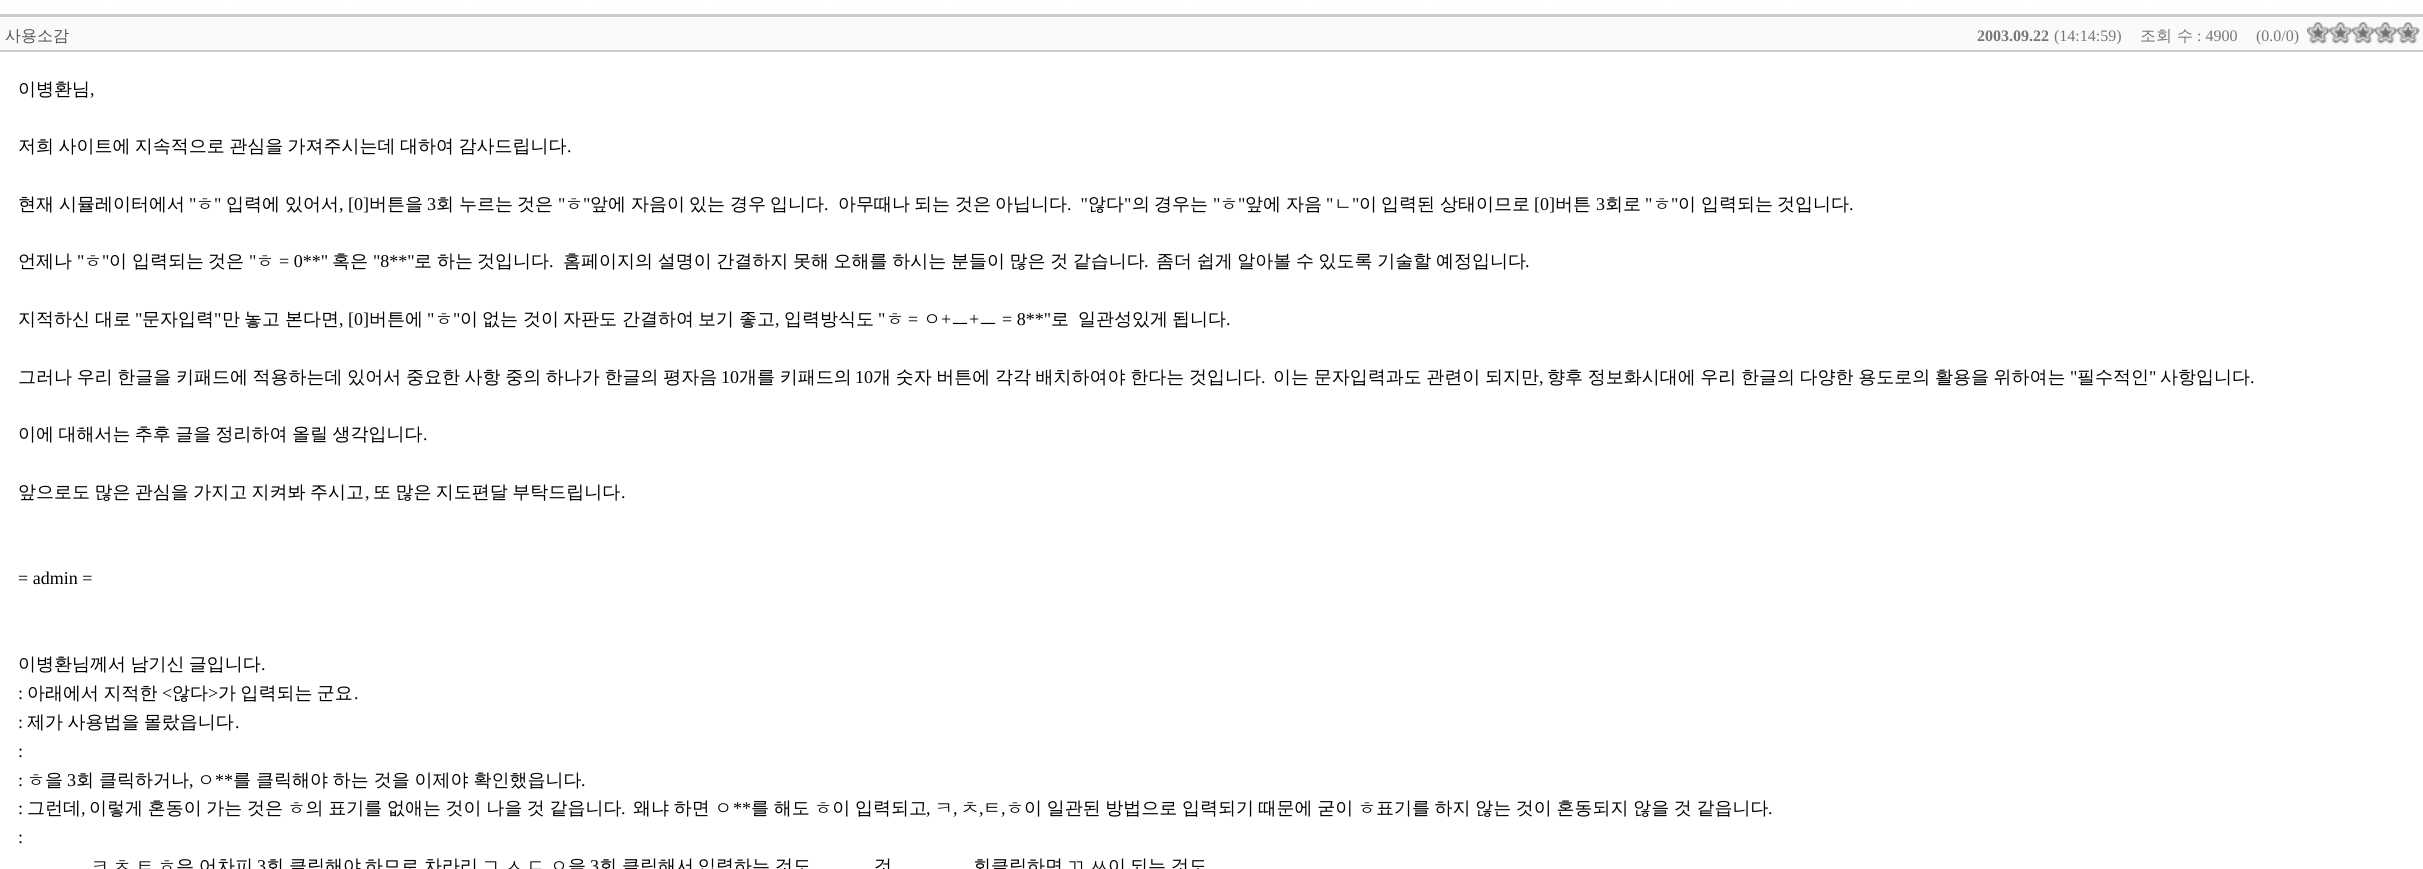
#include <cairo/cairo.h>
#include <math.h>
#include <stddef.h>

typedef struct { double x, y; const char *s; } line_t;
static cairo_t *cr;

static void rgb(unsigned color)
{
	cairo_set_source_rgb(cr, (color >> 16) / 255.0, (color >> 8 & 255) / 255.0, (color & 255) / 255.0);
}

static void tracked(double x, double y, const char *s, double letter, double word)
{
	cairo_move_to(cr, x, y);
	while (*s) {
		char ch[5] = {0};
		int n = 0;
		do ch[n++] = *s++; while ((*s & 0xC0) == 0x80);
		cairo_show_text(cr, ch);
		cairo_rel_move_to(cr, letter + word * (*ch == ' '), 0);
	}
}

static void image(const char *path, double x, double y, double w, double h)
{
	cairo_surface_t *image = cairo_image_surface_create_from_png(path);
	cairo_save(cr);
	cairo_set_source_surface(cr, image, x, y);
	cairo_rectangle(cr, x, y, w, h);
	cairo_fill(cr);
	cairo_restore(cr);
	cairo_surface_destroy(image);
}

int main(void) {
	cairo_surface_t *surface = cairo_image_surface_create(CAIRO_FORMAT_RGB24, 2423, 869);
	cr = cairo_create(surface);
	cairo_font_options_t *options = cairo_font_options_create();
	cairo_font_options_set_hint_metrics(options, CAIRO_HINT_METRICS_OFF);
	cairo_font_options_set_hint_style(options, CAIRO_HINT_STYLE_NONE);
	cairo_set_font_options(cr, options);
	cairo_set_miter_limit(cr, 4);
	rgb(0xffffff);
	cairo_paint(cr);
	image("img/1.png", 0, 0, 2423, 14);
	rgb(0xcccccc);
	cairo_rectangle(cr, 0, 14, 2423, 3);
	cairo_fill(cr);
	rgb(0xfafafa);
	cairo_rectangle(cr, 0, 17, 2423, 33);
	cairo_fill(cr);
	image("img/2.png", 2307, 22, 113, 22);
	rgb(0xcccccc);
	cairo_rectangle(cr, 0, 50, 2423, 2);
	cairo_fill(cr);
	cairo_select_font_face(cr, "WenQuanYi Zen Hei Medium", CAIRO_FONT_SLANT_NORMAL, CAIRO_FONT_WEIGHT_NORMAL);
	cairo_set_font_size(cr, 16);
	rgb(0x555555);
	cairo_move_to(cr, 5, 41);
	cairo_show_text(cr, "사용소감");
	cairo_select_font_face(cr, "Liberation Serif", CAIRO_FONT_SLANT_NORMAL, CAIRO_FONT_WEIGHT_BOLD);
	rgb(0x777777);
	cairo_move_to(cr, 1977, 41);
	cairo_show_text(cr, "2003.09.22");
	cairo_select_font_face(cr, "Liberation Serif", CAIRO_FONT_SLANT_NORMAL, CAIRO_FONT_WEIGHT_NORMAL);
	cairo_move_to(cr, 2054, 41);
	cairo_show_text(cr, "(14:14:59)");
	cairo_select_font_face(cr, "WenQuanYi Zen Hei Medium", CAIRO_FONT_SLANT_NORMAL, CAIRO_FONT_WEIGHT_NORMAL);
	cairo_move_to(cr, 2140, 41);
	cairo_show_text(cr, "조회");
	cairo_move_to(cr, 2177, 41);
	cairo_show_text(cr, "수");
	cairo_select_font_face(cr, "Liberation Serif", CAIRO_FONT_SLANT_NORMAL, CAIRO_FONT_WEIGHT_NORMAL);
	cairo_move_to(cr, 2197, 41);
	cairo_show_text(cr, ": 4900");
	cairo_move_to(cr, 2256, 41);
	cairo_show_text(cr, "(0.0/0)");
	cairo_select_font_face(cr, "WenQuanYi Zen Hei Medium", CAIRO_FONT_SLANT_NORMAL, CAIRO_FONT_WEIGHT_NORMAL);
	cairo_set_font_size(cr, 18);
	rgb(0x000000);
	cairo_move_to(cr, 18, 95);
	cairo_show_text(cr, "이병환님");
	cairo_select_font_face(cr, "Liberation Serif", CAIRO_FONT_SLANT_NORMAL, CAIRO_FONT_WEIGHT_NORMAL);
	cairo_move_to(cr, 90, 95);
	cairo_show_text(cr, ",");
	cairo_select_font_face(cr, "WenQuanYi Zen Hei Medium", CAIRO_FONT_SLANT_NORMAL, CAIRO_FONT_WEIGHT_NORMAL);
	tracked(18, 152, "저희 사이트에 지속적으로 관심을 가져주시는데 대하여 감사드립니다", 0, -1);
	cairo_select_font_face(cr, "Liberation Serif", CAIRO_FONT_SLANT_NORMAL, CAIRO_FONT_WEIGHT_NORMAL);
	cairo_move_to(cr, 567, 152);
	cairo_show_text(cr, ".");
	cairo_select_font_face(cr, "WenQuanYi Zen Hei Medium", CAIRO_FONT_SLANT_NORMAL, CAIRO_FONT_WEIGHT_NORMAL);
	cairo_move_to(cr, 18, 210);
	cairo_show_text(cr, "현재");
	cairo_move_to(cr, 59, 210);
	cairo_show_text(cr, "시뮬레이터에서");
	cairo_select_font_face(cr, "Liberation Serif", CAIRO_FONT_SLANT_NORMAL, CAIRO_FONT_WEIGHT_NORMAL);
	cairo_move_to(cr, 189, 210);
	cairo_show_text(cr, "\"");
	cairo_select_font_face(cr, "WenQuanYi Zen Hei Medium", CAIRO_FONT_SLANT_NORMAL, CAIRO_FONT_WEIGHT_NORMAL);
	cairo_move_to(cr, 196, 210);
	cairo_show_text(cr, "ㅎ");
	cairo_select_font_face(cr, "Liberation Serif", CAIRO_FONT_SLANT_NORMAL, CAIRO_FONT_WEIGHT_NORMAL);
	cairo_move_to(cr, 214, 210);
	cairo_show_text(cr, "\"");
	cairo_select_font_face(cr, "WenQuanYi Zen Hei Medium", CAIRO_FONT_SLANT_NORMAL, CAIRO_FONT_WEIGHT_NORMAL);
	cairo_move_to(cr, 226, 210);
	cairo_show_text(cr, "입력에");
	cairo_move_to(cr, 285, 210);
	cairo_show_text(cr, "있어서");
	cairo_select_font_face(cr, "Liberation Serif", CAIRO_FONT_SLANT_NORMAL, CAIRO_FONT_WEIGHT_NORMAL);
	cairo_move_to(cr, 339, 210);
	cairo_show_text(cr, ", [0]");
	cairo_select_font_face(cr, "WenQuanYi Zen Hei Medium", CAIRO_FONT_SLANT_NORMAL, CAIRO_FONT_WEIGHT_NORMAL);
	cairo_move_to(cr, 369, 210);
	cairo_show_text(cr, "버튼을");
	cairo_select_font_face(cr, "Liberation Serif", CAIRO_FONT_SLANT_NORMAL, CAIRO_FONT_WEIGHT_NORMAL);
	cairo_move_to(cr, 427, 210);
	cairo_show_text(cr, "3");
	cairo_select_font_face(cr, "WenQuanYi Zen Hei Medium", CAIRO_FONT_SLANT_NORMAL, CAIRO_FONT_WEIGHT_NORMAL);
	{
		static const line_t items[] = {
			{436, 210, "회"},
			{459, 210, "누르는"},
			{517, 210, "것은"},
		};
		for (size_t i = 0; i < sizeof items / sizeof *items; i++) {
			cairo_move_to(cr, items[i].x, items[i].y);
			cairo_show_text(cr, items[i].s);
		}
	}
	cairo_select_font_face(cr, "Liberation Serif", CAIRO_FONT_SLANT_NORMAL, CAIRO_FONT_WEIGHT_NORMAL);
	cairo_move_to(cr, 558, 210);
	cairo_show_text(cr, "\"");
	cairo_select_font_face(cr, "WenQuanYi Zen Hei Medium", CAIRO_FONT_SLANT_NORMAL, CAIRO_FONT_WEIGHT_NORMAL);
	cairo_move_to(cr, 565, 210);
	cairo_show_text(cr, "ㅎ");
	cairo_select_font_face(cr, "Liberation Serif", CAIRO_FONT_SLANT_NORMAL, CAIRO_FONT_WEIGHT_NORMAL);
	cairo_move_to(cr, 583, 210);
	cairo_show_text(cr, "\"");
	cairo_select_font_face(cr, "WenQuanYi Zen Hei Medium", CAIRO_FONT_SLANT_NORMAL, CAIRO_FONT_WEIGHT_NORMAL);
	{
		static const line_t items[] = {
			{590, 210, "앞에"},
			{631, 210, "자음이"},
			{689, 210, "있는"},
			{730, 210, "경우"},
			{770, 210, "입니다"},
			{838, 210, "아무때나"},
			{914, 210, "되는"},
			{955, 210, "것은"},
			{995, 210, "아닙니다"},
		};
		for (size_t i = 0; i < sizeof items / sizeof *items; i++) {
			cairo_move_to(cr, items[i].x, items[i].y);
			cairo_show_text(cr, items[i].s);
		}
	}
	cairo_select_font_face(cr, "Liberation Serif", CAIRO_FONT_SLANT_NORMAL, CAIRO_FONT_WEIGHT_NORMAL);
	cairo_move_to(cr, 1067, 210);
	cairo_show_text(cr, ".  \"");
	cairo_select_font_face(cr, "WenQuanYi Zen Hei Medium", CAIRO_FONT_SLANT_NORMAL, CAIRO_FONT_WEIGHT_NORMAL);
	cairo_move_to(cr, 1088, 210);
	cairo_show_text(cr, "않다");
	cairo_select_font_face(cr, "Liberation Serif", CAIRO_FONT_SLANT_NORMAL, CAIRO_FONT_WEIGHT_NORMAL);
	cairo_move_to(cr, 1124, 210);
	cairo_show_text(cr, "\"");
	cairo_select_font_face(cr, "WenQuanYi Zen Hei Medium", CAIRO_FONT_SLANT_NORMAL, CAIRO_FONT_WEIGHT_NORMAL);
	cairo_move_to(cr, 1132, 210);
	cairo_show_text(cr, "의");
	cairo_move_to(cr, 1154, 210);
	cairo_show_text(cr, "경우는");
	cairo_select_font_face(cr, "Liberation Serif", CAIRO_FONT_SLANT_NORMAL, CAIRO_FONT_WEIGHT_NORMAL);
	cairo_move_to(cr, 1213, 210);
	cairo_show_text(cr, "\"");
	cairo_select_font_face(cr, "WenQuanYi Zen Hei Medium", CAIRO_FONT_SLANT_NORMAL, CAIRO_FONT_WEIGHT_NORMAL);
	cairo_move_to(cr, 1220, 210);
	cairo_show_text(cr, "ㅎ");
	cairo_select_font_face(cr, "Liberation Serif", CAIRO_FONT_SLANT_NORMAL, CAIRO_FONT_WEIGHT_NORMAL);
	cairo_move_to(cr, 1238, 210);
	cairo_show_text(cr, "\"");
	cairo_select_font_face(cr, "WenQuanYi Zen Hei Medium", CAIRO_FONT_SLANT_NORMAL, CAIRO_FONT_WEIGHT_NORMAL);
	cairo_move_to(cr, 1245, 210);
	cairo_show_text(cr, "앞에");
	cairo_move_to(cr, 1286, 210);
	cairo_show_text(cr, "자음");
	cairo_select_font_face(cr, "Liberation Serif", CAIRO_FONT_SLANT_NORMAL, CAIRO_FONT_WEIGHT_NORMAL);
	cairo_move_to(cr, 1326, 210);
	cairo_show_text(cr, "\"");
	cairo_select_font_face(cr, "WenQuanYi Zen Hei Medium", CAIRO_FONT_SLANT_NORMAL, CAIRO_FONT_WEIGHT_NORMAL);
	cairo_move_to(cr, 1334, 210);
	cairo_show_text(cr, "ㄴ");
	cairo_select_font_face(cr, "Liberation Serif", CAIRO_FONT_SLANT_NORMAL, CAIRO_FONT_WEIGHT_NORMAL);
	cairo_move_to(cr, 1352, 210);
	cairo_show_text(cr, "\"");
	cairo_select_font_face(cr, "WenQuanYi Zen Hei Medium", CAIRO_FONT_SLANT_NORMAL, CAIRO_FONT_WEIGHT_NORMAL);
	{
		static const line_t items[] = {
			{1359, 210, "이"},
			{1381, 210, "입력된"},
			{1440, 210, "상태이므로"},
		};
		for (size_t i = 0; i < sizeof items / sizeof *items; i++) {
			cairo_move_to(cr, items[i].x, items[i].y);
			cairo_show_text(cr, items[i].s);
		}
	}
	cairo_select_font_face(cr, "Liberation Serif", CAIRO_FONT_SLANT_NORMAL, CAIRO_FONT_WEIGHT_NORMAL);
	cairo_move_to(cr, 1534, 210);
	cairo_show_text(cr, "[0]");
	cairo_select_font_face(cr, "WenQuanYi Zen Hei Medium", CAIRO_FONT_SLANT_NORMAL, CAIRO_FONT_WEIGHT_NORMAL);
	cairo_move_to(cr, 1555, 210);
	cairo_show_text(cr, "버튼");
	cairo_select_font_face(cr, "Liberation Serif", CAIRO_FONT_SLANT_NORMAL, CAIRO_FONT_WEIGHT_NORMAL);
	cairo_move_to(cr, 1596, 210);
	cairo_show_text(cr, "3");
	cairo_select_font_face(cr, "WenQuanYi Zen Hei Medium", CAIRO_FONT_SLANT_NORMAL, CAIRO_FONT_WEIGHT_NORMAL);
	cairo_move_to(cr, 1605, 210);
	cairo_show_text(cr, "회로");
	cairo_select_font_face(cr, "Liberation Serif", CAIRO_FONT_SLANT_NORMAL, CAIRO_FONT_WEIGHT_NORMAL);
	cairo_move_to(cr, 1645, 210);
	cairo_show_text(cr, "\"");
	cairo_select_font_face(cr, "WenQuanYi Zen Hei Medium", CAIRO_FONT_SLANT_NORMAL, CAIRO_FONT_WEIGHT_NORMAL);
	cairo_move_to(cr, 1653, 210);
	cairo_show_text(cr, "ㅎ");
	cairo_select_font_face(cr, "Liberation Serif", CAIRO_FONT_SLANT_NORMAL, CAIRO_FONT_WEIGHT_NORMAL);
	cairo_move_to(cr, 1671, 210);
	cairo_show_text(cr, "\"");
	cairo_select_font_face(cr, "WenQuanYi Zen Hei Medium", CAIRO_FONT_SLANT_NORMAL, CAIRO_FONT_WEIGHT_NORMAL);
	{
		static const line_t items[] = {
			{1678, 210, "이"},
			{1701, 210, "입력되는"},
			{1777, 210, "것입니다"},
		};
		for (size_t i = 0; i < sizeof items / sizeof *items; i++) {
			cairo_move_to(cr, items[i].x, items[i].y);
			cairo_show_text(cr, items[i].s);
		}
	}
	cairo_select_font_face(cr, "Liberation Serif", CAIRO_FONT_SLANT_NORMAL, CAIRO_FONT_WEIGHT_NORMAL);
	cairo_move_to(cr, 824, 210);
	cairo_show_text(cr, ".");
	cairo_move_to(cr, 1849, 210);
	cairo_show_text(cr, ".");
	cairo_select_font_face(cr, "WenQuanYi Zen Hei Medium", CAIRO_FONT_SLANT_NORMAL, CAIRO_FONT_WEIGHT_NORMAL);
	cairo_move_to(cr, 18, 267);
	cairo_show_text(cr, "언제나");
	cairo_select_font_face(cr, "Liberation Serif", CAIRO_FONT_SLANT_NORMAL, CAIRO_FONT_WEIGHT_NORMAL);
	cairo_move_to(cr, 77, 267);
	cairo_show_text(cr, "\"");
	cairo_select_font_face(cr, "WenQuanYi Zen Hei Medium", CAIRO_FONT_SLANT_NORMAL, CAIRO_FONT_WEIGHT_NORMAL);
	cairo_move_to(cr, 84, 267);
	cairo_show_text(cr, "ㅎ");
	cairo_select_font_face(cr, "Liberation Serif", CAIRO_FONT_SLANT_NORMAL, CAIRO_FONT_WEIGHT_NORMAL);
	cairo_move_to(cr, 102, 267);
	cairo_show_text(cr, "\"");
	cairo_select_font_face(cr, "WenQuanYi Zen Hei Medium", CAIRO_FONT_SLANT_NORMAL, CAIRO_FONT_WEIGHT_NORMAL);
	{
		static const line_t items[] = {
			{109, 267, "이"},
			{132, 267, "입력되는"},
			{208, 267, "것은"},
		};
		for (size_t i = 0; i < sizeof items / sizeof *items; i++) {
			cairo_move_to(cr, items[i].x, items[i].y);
			cairo_show_text(cr, items[i].s);
		}
	}
	cairo_select_font_face(cr, "Liberation Serif", CAIRO_FONT_SLANT_NORMAL, CAIRO_FONT_WEIGHT_NORMAL);
	cairo_move_to(cr, 249, 267);
	cairo_show_text(cr, "\"");
	cairo_select_font_face(cr, "WenQuanYi Zen Hei Medium", CAIRO_FONT_SLANT_NORMAL, CAIRO_FONT_WEIGHT_NORMAL);
	cairo_move_to(cr, 256, 267);
	cairo_show_text(cr, "ㅎ");
	cairo_select_font_face(cr, "Liberation Serif", CAIRO_FONT_SLANT_NORMAL, CAIRO_FONT_WEIGHT_NORMAL);
	cairo_move_to(cr, 279, 267);
	cairo_show_text(cr, "= 0**\"");
	cairo_select_font_face(cr, "WenQuanYi Zen Hei Medium", CAIRO_FONT_SLANT_NORMAL, CAIRO_FONT_WEIGHT_NORMAL);
	cairo_move_to(cr, 332, 267);
	cairo_show_text(cr, "혹은");
	cairo_select_font_face(cr, "Liberation Serif", CAIRO_FONT_SLANT_NORMAL, CAIRO_FONT_WEIGHT_NORMAL);
	cairo_move_to(cr, 373, 267);
	cairo_show_text(cr, "\"8**\"");
	cairo_select_font_face(cr, "WenQuanYi Zen Hei Medium", CAIRO_FONT_SLANT_NORMAL, CAIRO_FONT_WEIGHT_NORMAL);
	{
		static const line_t items[] = {
			{414, 267, "로"},
			{437, 267, "하는"},
			{477, 267, "것입니다"},
		};
		for (size_t i = 0; i < sizeof items / sizeof *items; i++) {
			cairo_move_to(cr, items[i].x, items[i].y);
			cairo_show_text(cr, items[i].s);
		}
	}
	cairo_select_font_face(cr, "Liberation Serif", CAIRO_FONT_SLANT_NORMAL, CAIRO_FONT_WEIGHT_NORMAL);
	cairo_move_to(cr, 549, 267);
	cairo_show_text(cr, ".");
	cairo_select_font_face(cr, "WenQuanYi Zen Hei Medium", CAIRO_FONT_SLANT_NORMAL, CAIRO_FONT_WEIGHT_NORMAL);
	tracked(563, 267, "홈페이지의 설명이 간결하지 못해 오해를 하시는 분들이 많은 것 같습니다", 0, -0.75);
	cairo_select_font_face(cr, "Liberation Serif", CAIRO_FONT_SLANT_NORMAL, CAIRO_FONT_WEIGHT_NORMAL);
	cairo_move_to(cr, 1144, 267);
	cairo_show_text(cr, ".");
	cairo_select_font_face(cr, "WenQuanYi Zen Hei Medium", CAIRO_FONT_SLANT_NORMAL, CAIRO_FONT_WEIGHT_NORMAL);
	tracked(1156, 267, "좀더 쉽게 알아볼 수 있도록 기술할 예정입니다", 0, -0.75);
	cairo_select_font_face(cr, "Liberation Serif", CAIRO_FONT_SLANT_NORMAL, CAIRO_FONT_WEIGHT_NORMAL);
	cairo_move_to(cr, 1525, 267);
	cairo_show_text(cr, ".");
	cairo_select_font_face(cr, "WenQuanYi Zen Hei Medium", CAIRO_FONT_SLANT_NORMAL, CAIRO_FONT_WEIGHT_NORMAL);
	cairo_move_to(cr, 18, 325);
	cairo_show_text(cr, "지적하신");
	cairo_move_to(cr, 95, 325);
	cairo_show_text(cr, "대로");
	cairo_select_font_face(cr, "Liberation Serif", CAIRO_FONT_SLANT_NORMAL, CAIRO_FONT_WEIGHT_NORMAL);
	cairo_move_to(cr, 135, 325);
	cairo_show_text(cr, "\"");
	cairo_select_font_face(cr, "WenQuanYi Zen Hei Medium", CAIRO_FONT_SLANT_NORMAL, CAIRO_FONT_WEIGHT_NORMAL);
	cairo_move_to(cr, 142, 325);
	cairo_show_text(cr, "문자입력");
	cairo_select_font_face(cr, "Liberation Serif", CAIRO_FONT_SLANT_NORMAL, CAIRO_FONT_WEIGHT_NORMAL);
	cairo_move_to(cr, 214, 325);
	cairo_show_text(cr, "\"");
	cairo_select_font_face(cr, "WenQuanYi Zen Hei Medium", CAIRO_FONT_SLANT_NORMAL, CAIRO_FONT_WEIGHT_NORMAL);
	{
		static const line_t items[] = {
			{222, 325, "만"},
			{244, 325, "놓고"},
			{285, 325, "본다면"},
		};
		for (size_t i = 0; i < sizeof items / sizeof *items; i++) {
			cairo_move_to(cr, items[i].x, items[i].y);
			cairo_show_text(cr, items[i].s);
		}
	}
	cairo_select_font_face(cr, "Liberation Serif", CAIRO_FONT_SLANT_NORMAL, CAIRO_FONT_WEIGHT_NORMAL);
	cairo_move_to(cr, 339, 325);
	cairo_show_text(cr, ", [0]");
	cairo_select_font_face(cr, "WenQuanYi Zen Hei Medium", CAIRO_FONT_SLANT_NORMAL, CAIRO_FONT_WEIGHT_NORMAL);
	cairo_move_to(cr, 369, 325);
	cairo_show_text(cr, "버튼에");
	cairo_select_font_face(cr, "Liberation Serif", CAIRO_FONT_SLANT_NORMAL, CAIRO_FONT_WEIGHT_NORMAL);
	cairo_move_to(cr, 427, 325);
	cairo_show_text(cr, "\"");
	cairo_select_font_face(cr, "WenQuanYi Zen Hei Medium", CAIRO_FONT_SLANT_NORMAL, CAIRO_FONT_WEIGHT_NORMAL);
	cairo_move_to(cr, 435, 325);
	cairo_show_text(cr, "ㅎ");
	cairo_select_font_face(cr, "Liberation Serif", CAIRO_FONT_SLANT_NORMAL, CAIRO_FONT_WEIGHT_NORMAL);
	cairo_move_to(cr, 453, 325);
	cairo_show_text(cr, "\"");
	cairo_select_font_face(cr, "WenQuanYi Zen Hei Medium", CAIRO_FONT_SLANT_NORMAL, CAIRO_FONT_WEIGHT_NORMAL);
	{
		static const line_t items[] = {
			{460, 325, "이"},
			{482, 325, "없는"},
			{523, 325, "것이"},
			{563, 325, "자판도"},
			{622, 325, "간결하여"},
			{698, 325, "보기"},
			{739, 325, "좋고"},
			{784, 325, "입력방식도"},
		};
		for (size_t i = 0; i < sizeof items / sizeof *items; i++) {
			cairo_move_to(cr, items[i].x, items[i].y);
			cairo_show_text(cr, items[i].s);
		}
	}
	cairo_select_font_face(cr, "Liberation Serif", CAIRO_FONT_SLANT_NORMAL, CAIRO_FONT_WEIGHT_NORMAL);
	cairo_move_to(cr, 878, 325);
	cairo_show_text(cr, "\"");
	cairo_select_font_face(cr, "WenQuanYi Zen Hei Medium", CAIRO_FONT_SLANT_NORMAL, CAIRO_FONT_WEIGHT_NORMAL);
	cairo_move_to(cr, 886, 325);
	cairo_show_text(cr, "ㅎ");
	cairo_select_font_face(cr, "Liberation Serif", CAIRO_FONT_SLANT_NORMAL, CAIRO_FONT_WEIGHT_NORMAL);
	cairo_move_to(cr, 908, 325);
	cairo_show_text(cr, "=");
	cairo_select_font_face(cr, "WenQuanYi Zen Hei Medium", CAIRO_FONT_SLANT_NORMAL, CAIRO_FONT_WEIGHT_NORMAL);
	cairo_move_to(cr, 923, 325);
	cairo_show_text(cr, "ㅇ");
	cairo_select_font_face(cr, "Liberation Serif", CAIRO_FONT_SLANT_NORMAL, CAIRO_FONT_WEIGHT_NORMAL);
	{
		static const line_t items[] = {
			{941, 325, "+"},
			{969, 325, "+"},
			{1002, 325, "= 8**\""},
		};
		for (size_t i = 0; i < sizeof items / sizeof *items; i++) {
			cairo_move_to(cr, items[i].x, items[i].y);
			cairo_show_text(cr, items[i].s);
		}
	}
	cairo_select_font_face(cr, "WenQuanYi Zen Hei Medium", CAIRO_FONT_SLANT_NORMAL, CAIRO_FONT_WEIGHT_NORMAL);
	{
		static const line_t items[] = {
			{1051, 325, "로"},
			{1078, 325, "일관성있게"},
			{1172, 325, "됩니다"},
		};
		for (size_t i = 0; i < sizeof items / sizeof *items; i++) {
			cairo_move_to(cr, items[i].x, items[i].y);
			cairo_show_text(cr, items[i].s);
		}
	}
	cairo_select_font_face(cr, "Liberation Serif", CAIRO_FONT_SLANT_NORMAL, CAIRO_FONT_WEIGHT_NORMAL);
	cairo_move_to(cr, 775, 325);
	cairo_show_text(cr, ",");
	cairo_select_font_face(cr, "WenQuanYi Zen Hei Medium", CAIRO_FONT_SLANT_NORMAL, CAIRO_FONT_WEIGHT_NORMAL);
	cairo_move_to(cr, 951, 325);
	cairo_show_text(cr, "ㅡ");
	cairo_move_to(cr, 979, 325);
	cairo_show_text(cr, "ㅡ");
	cairo_select_font_face(cr, "Liberation Serif", CAIRO_FONT_SLANT_NORMAL, CAIRO_FONT_WEIGHT_NORMAL);
	cairo_move_to(cr, 1226, 325);
	cairo_show_text(cr, ".");
	cairo_select_font_face(cr, "WenQuanYi Zen Hei Medium", CAIRO_FONT_SLANT_NORMAL, CAIRO_FONT_WEIGHT_NORMAL);
	tracked(18, 383, "그러나 우리 한글을 키패드에 적용하는데 있어서 중요한 사항 중의 하나가 한글의 평자음", 0, -0.75);
	cairo_select_font_face(cr, "Liberation Serif", CAIRO_FONT_SLANT_NORMAL, CAIRO_FONT_WEIGHT_NORMAL);
	cairo_move_to(cr, 721, 383);
	cairo_show_text(cr, "10");
	cairo_select_font_face(cr, "WenQuanYi Zen Hei Medium", CAIRO_FONT_SLANT_NORMAL, CAIRO_FONT_WEIGHT_NORMAL);
	tracked(739, 383, "개를 키패드의", 0, -0.75);
	cairo_select_font_face(cr, "Liberation Serif", CAIRO_FONT_SLANT_NORMAL, CAIRO_FONT_WEIGHT_NORMAL);
	cairo_move_to(cr, 855, 383);
	cairo_show_text(cr, "10");
	cairo_select_font_face(cr, "WenQuanYi Zen Hei Medium", CAIRO_FONT_SLANT_NORMAL, CAIRO_FONT_WEIGHT_NORMAL);
	{
		static const line_t items[] = {
			{873, 383, "개 숫자 버튼에 각각 배치하여야 한다는 것입니다"},
			{1273, 383, "이는 문자입력과도 관련이 되지만"},
			{1547, 383, "향후 정보화시대에 우리 한글의 다양한 용도로의 활용을 위하여는"},
		};
		for (size_t i = 0; i < sizeof items / sizeof *items; i++) {
			tracked(items[i].x, items[i].y, items[i].s, 0, -0.75);
		}
	}
	cairo_select_font_face(cr, "Liberation Serif", CAIRO_FONT_SLANT_NORMAL, CAIRO_FONT_WEIGHT_NORMAL);
	cairo_move_to(cr, 2070, 383);
	cairo_show_text(cr, "\"");
	cairo_select_font_face(cr, "WenQuanYi Zen Hei Medium", CAIRO_FONT_SLANT_NORMAL, CAIRO_FONT_WEIGHT_NORMAL);
	cairo_move_to(cr, 2077, 383);
	cairo_show_text(cr, "필수적인");
	cairo_select_font_face(cr, "Liberation Serif", CAIRO_FONT_SLANT_NORMAL, CAIRO_FONT_WEIGHT_NORMAL);
	cairo_move_to(cr, 2149, 383);
	cairo_show_text(cr, "\"");
	cairo_select_font_face(cr, "WenQuanYi Zen Hei Medium", CAIRO_FONT_SLANT_NORMAL, CAIRO_FONT_WEIGHT_NORMAL);
	cairo_move_to(cr, 2160, 383);
	cairo_show_text(cr, "사항입니다");
	cairo_select_font_face(cr, "Liberation Serif", CAIRO_FONT_SLANT_NORMAL, CAIRO_FONT_WEIGHT_NORMAL);
	{
		static const line_t items[] = {
			{1261, 383, "."},
			{1539, 383, ","},
			{2250, 383, "."},
		};
		for (size_t i = 0; i < sizeof items / sizeof *items; i++) {
			cairo_move_to(cr, items[i].x, items[i].y);
			cairo_show_text(cr, items[i].s);
		}
	}
	cairo_select_font_face(cr, "WenQuanYi Zen Hei Medium", CAIRO_FONT_SLANT_NORMAL, CAIRO_FONT_WEIGHT_NORMAL);
	tracked(18, 440, "이에 대해서는 추후 글을 정리하여 올릴 생각입니다", 0, -1);
	cairo_select_font_face(cr, "Liberation Serif", CAIRO_FONT_SLANT_NORMAL, CAIRO_FONT_WEIGHT_NORMAL);
	cairo_move_to(cr, 423, 440);
	cairo_show_text(cr, ".");
	cairo_select_font_face(cr, "WenQuanYi Zen Hei Medium", CAIRO_FONT_SLANT_NORMAL, CAIRO_FONT_WEIGHT_NORMAL);
	tracked(18, 498, "앞으로도 많은 관심을 가지고 지켜봐 주시고", 0, -1);
	cairo_select_font_face(cr, "Liberation Serif", CAIRO_FONT_SLANT_NORMAL, CAIRO_FONT_WEIGHT_NORMAL);
	cairo_move_to(cr, 365, 498);
	cairo_show_text(cr, ",");
	cairo_select_font_face(cr, "WenQuanYi Zen Hei Medium", CAIRO_FONT_SLANT_NORMAL, CAIRO_FONT_WEIGHT_NORMAL);
	tracked(373, 498, "또 많은 지도편달 부탁드립니다", 0, -1);
	cairo_select_font_face(cr, "Liberation Serif", CAIRO_FONT_SLANT_NORMAL, CAIRO_FONT_WEIGHT_NORMAL);
	cairo_move_to(cr, 621, 498);
	cairo_show_text(cr, ".");
	cairo_move_to(cr, 18, 584);
	cairo_show_text(cr, "= admin =");
	cairo_select_font_face(cr, "WenQuanYi Zen Hei Medium", CAIRO_FONT_SLANT_NORMAL, CAIRO_FONT_WEIGHT_NORMAL);
	tracked(18, 670, "이병환님께서 남기신 글입니다", 0, -1);
	cairo_select_font_face(cr, "Liberation Serif", CAIRO_FONT_SLANT_NORMAL, CAIRO_FONT_WEIGHT_NORMAL);
	cairo_move_to(cr, 261, 670);
	cairo_show_text(cr, ".");
	cairo_move_to(cr, 18, 699);
	cairo_show_text(cr, ":");
	cairo_select_font_face(cr, "WenQuanYi Zen Hei Medium", CAIRO_FONT_SLANT_NORMAL, CAIRO_FONT_WEIGHT_NORMAL);
	tracked(27, 699, "아래에서 지적한", 0, -1);
	cairo_select_font_face(cr, "Liberation Serif", CAIRO_FONT_SLANT_NORMAL, CAIRO_FONT_WEIGHT_NORMAL);
	cairo_move_to(cr, 162, 699);
	cairo_show_text(cr, "<");
	cairo_select_font_face(cr, "WenQuanYi Zen Hei Medium", CAIRO_FONT_SLANT_NORMAL, CAIRO_FONT_WEIGHT_NORMAL);
	cairo_move_to(cr, 172, 699);
	cairo_show_text(cr, "않다");
	cairo_select_font_face(cr, "Liberation Serif", CAIRO_FONT_SLANT_NORMAL, CAIRO_FONT_WEIGHT_NORMAL);
	cairo_move_to(cr, 208, 699);
	cairo_show_text(cr, ">");
	cairo_select_font_face(cr, "WenQuanYi Zen Hei Medium", CAIRO_FONT_SLANT_NORMAL, CAIRO_FONT_WEIGHT_NORMAL);
	tracked(218, 699, "가 입력되는 군요", 0, -1);
	cairo_select_font_face(cr, "Liberation Serif", CAIRO_FONT_SLANT_NORMAL, CAIRO_FONT_WEIGHT_NORMAL);
	cairo_move_to(cr, 354, 699);
	cairo_show_text(cr, ".");
	cairo_move_to(cr, 18, 728);
	cairo_show_text(cr, ":");
	cairo_select_font_face(cr, "WenQuanYi Zen Hei Medium", CAIRO_FONT_SLANT_NORMAL, CAIRO_FONT_WEIGHT_NORMAL);
	tracked(27, 728, "제가 사용법을 몰랐읍니다", 0, -1);
	cairo_select_font_face(cr, "Liberation Serif", CAIRO_FONT_SLANT_NORMAL, CAIRO_FONT_WEIGHT_NORMAL);
	{
		static const line_t items[] = {
			{235, 728, "."},
			{18, 757, ":"},
			{18, 786, ":"},
		};
		for (size_t i = 0; i < sizeof items / sizeof *items; i++) {
			cairo_move_to(cr, items[i].x, items[i].y);
			cairo_show_text(cr, items[i].s);
		}
	}
	cairo_select_font_face(cr, "WenQuanYi Zen Hei Medium", CAIRO_FONT_SLANT_NORMAL, CAIRO_FONT_WEIGHT_NORMAL);
	cairo_move_to(cr, 27, 786);
	cairo_show_text(cr, "ㅎ을");
	cairo_select_font_face(cr, "Liberation Serif", CAIRO_FONT_SLANT_NORMAL, CAIRO_FONT_WEIGHT_NORMAL);
	cairo_move_to(cr, 67, 786);
	cairo_show_text(cr, "3");
	cairo_select_font_face(cr, "WenQuanYi Zen Hei Medium", CAIRO_FONT_SLANT_NORMAL, CAIRO_FONT_WEIGHT_NORMAL);
	tracked(76, 786, "회 클릭하거나", 0, -0.5);
	cairo_select_font_face(cr, "Liberation Serif", CAIRO_FONT_SLANT_NORMAL, CAIRO_FONT_WEIGHT_NORMAL);
	cairo_move_to(cr, 189, 786);
	cairo_show_text(cr, ",");
	cairo_select_font_face(cr, "WenQuanYi Zen Hei Medium", CAIRO_FONT_SLANT_NORMAL, CAIRO_FONT_WEIGHT_NORMAL);
	cairo_move_to(cr, 197, 786);
	cairo_show_text(cr, "ㅇ");
	cairo_select_font_face(cr, "Liberation Serif", CAIRO_FONT_SLANT_NORMAL, CAIRO_FONT_WEIGHT_NORMAL);
	cairo_move_to(cr, 215, 786);
	cairo_show_text(cr, "**");
	cairo_select_font_face(cr, "WenQuanYi Zen Hei Medium", CAIRO_FONT_SLANT_NORMAL, CAIRO_FONT_WEIGHT_NORMAL);
	tracked(233, 786, "를 클릭해야 하는 것을 이제야 확인했읍니다", 0, -0.5);
	cairo_select_font_face(cr, "Liberation Serif", CAIRO_FONT_SLANT_NORMAL, CAIRO_FONT_WEIGHT_NORMAL);
	cairo_move_to(cr, 581, 786);
	cairo_show_text(cr, ".");
	cairo_move_to(cr, 18, 814);
	cairo_show_text(cr, ":");
	cairo_select_font_face(cr, "WenQuanYi Zen Hei Medium", CAIRO_FONT_SLANT_NORMAL, CAIRO_FONT_WEIGHT_NORMAL);
	cairo_move_to(cr, 27, 814);
	cairo_show_text(cr, "그런데");
	cairo_select_font_face(cr, "Liberation Serif", CAIRO_FONT_SLANT_NORMAL, CAIRO_FONT_WEIGHT_NORMAL);
	cairo_move_to(cr, 81, 814);
	cairo_show_text(cr, ",");
	cairo_select_font_face(cr, "WenQuanYi Zen Hei Medium", CAIRO_FONT_SLANT_NORMAL, CAIRO_FONT_WEIGHT_NORMAL);
	tracked(89, 814, "이렇게 혼동이 가는 것은 ㅎ의 표기를 없애는 것이 나을 것 같읍니다", 0, -0.75);
	cairo_select_font_face(cr, "Liberation Serif", CAIRO_FONT_SLANT_NORMAL, CAIRO_FONT_WEIGHT_NORMAL);
	cairo_move_to(cr, 621, 814);
	cairo_show_text(cr, ".");
	cairo_select_font_face(cr, "WenQuanYi Zen Hei Medium", CAIRO_FONT_SLANT_NORMAL, CAIRO_FONT_WEIGHT_NORMAL);
	tracked(633, 814, "왜냐 하면 ㅇ", 0, -0.75);
	cairo_select_font_face(cr, "Liberation Serif", CAIRO_FONT_SLANT_NORMAL, CAIRO_FONT_WEIGHT_NORMAL);
	cairo_move_to(cr, 733, 814);
	cairo_show_text(cr, "**");
	cairo_select_font_face(cr, "WenQuanYi Zen Hei Medium", CAIRO_FONT_SLANT_NORMAL, CAIRO_FONT_WEIGHT_NORMAL);
	tracked(751, 814, "를 해도 ㅎ이 입력되고", 0, -0.75);
	cairo_select_font_face(cr, "Liberation Serif", CAIRO_FONT_SLANT_NORMAL, CAIRO_FONT_WEIGHT_NORMAL);
	cairo_move_to(cr, 926, 814);
	cairo_show_text(cr, ",");
	cairo_select_font_face(cr, "WenQuanYi Zen Hei Medium", CAIRO_FONT_SLANT_NORMAL, CAIRO_FONT_WEIGHT_NORMAL);
	cairo_move_to(cr, 935, 814);
	cairo_show_text(cr, "ㅋ");
	cairo_select_font_face(cr, "Liberation Serif", CAIRO_FONT_SLANT_NORMAL, CAIRO_FONT_WEIGHT_NORMAL);
	cairo_move_to(cr, 953, 814);
	cairo_show_text(cr, ",");
	cairo_select_font_face(cr, "WenQuanYi Zen Hei Medium", CAIRO_FONT_SLANT_NORMAL, CAIRO_FONT_WEIGHT_NORMAL);
	cairo_move_to(cr, 961, 814);
	cairo_show_text(cr, "ㅊ");
	cairo_select_font_face(cr, "Liberation Serif", CAIRO_FONT_SLANT_NORMAL, CAIRO_FONT_WEIGHT_NORMAL);
	cairo_move_to(cr, 979, 814);
	cairo_show_text(cr, ",");
	cairo_select_font_face(cr, "WenQuanYi Zen Hei Medium", CAIRO_FONT_SLANT_NORMAL, CAIRO_FONT_WEIGHT_NORMAL);
	cairo_move_to(cr, 983, 814);
	cairo_show_text(cr, "ㅌ");
	cairo_select_font_face(cr, "Liberation Serif", CAIRO_FONT_SLANT_NORMAL, CAIRO_FONT_WEIGHT_NORMAL);
	cairo_move_to(cr, 1001, 814);
	cairo_show_text(cr, ",");
	cairo_select_font_face(cr, "WenQuanYi Zen Hei Medium", CAIRO_FONT_SLANT_NORMAL, CAIRO_FONT_WEIGHT_NORMAL);
	tracked(1006, 814, "ㅎ이 일관된 방법으로 입력되기 때문에 굳이 ㅎ표기를 하지 않는 것이 혼동되지 않을 것 같읍니다", 0, -0.75);
	cairo_select_font_face(cr, "Liberation Serif", CAIRO_FONT_SLANT_NORMAL, CAIRO_FONT_WEIGHT_NORMAL);
	cairo_move_to(cr, 1768, 814);
	cairo_show_text(cr, ".");
	cairo_move_to(cr, 18, 843);
	cairo_show_text(cr, ":");
	cairo_select_font_face(cr, "WenQuanYi Zen Hei Medium", CAIRO_FONT_SLANT_NORMAL, CAIRO_FONT_WEIGHT_NORMAL);
	{
		static const line_t items[] = {
			{91, 872, "ㅋ"},
			{113, 872, "ㅊ"},
			{136, 872, "ㅌ"},
			{158, 872, "ㅎ은"},
			{199, 872, "어차피"},
		};
		for (size_t i = 0; i < sizeof items / sizeof *items; i++) {
			cairo_move_to(cr, items[i].x, items[i].y);
			cairo_show_text(cr, items[i].s);
		}
	}
	cairo_select_font_face(cr, "Liberation Serif", CAIRO_FONT_SLANT_NORMAL, CAIRO_FONT_WEIGHT_NORMAL);
	cairo_move_to(cr, 257, 872);
	cairo_show_text(cr, "3");
	cairo_select_font_face(cr, "WenQuanYi Zen Hei Medium", CAIRO_FONT_SLANT_NORMAL, CAIRO_FONT_WEIGHT_NORMAL);
	{
		static const line_t items[] = {
			{266, 872, "회"},
			{289, 872, "클릭해야"},
			{365, 872, "하므로"},
			{424, 872, "차라리"},
			{482, 872, "ㄱ"},
			{505, 872, "ㅅ"},
			{527, 872, "ㄷ"},
			{550, 872, "ㅇ을"},
		};
		for (size_t i = 0; i < sizeof items / sizeof *items; i++) {
			cairo_move_to(cr, items[i].x, items[i].y);
			cairo_show_text(cr, items[i].s);
		}
	}
	cairo_select_font_face(cr, "Liberation Serif", CAIRO_FONT_SLANT_NORMAL, CAIRO_FONT_WEIGHT_NORMAL);
	cairo_move_to(cr, 590, 872);
	cairo_show_text(cr, "3");
	cairo_select_font_face(cr, "WenQuanYi Zen Hei Medium", CAIRO_FONT_SLANT_NORMAL, CAIRO_FONT_WEIGHT_NORMAL);
	{
		static const line_t items[] = {
			{599, 872, "회"},
			{622, 872, "클릭해서"},
			{698, 872, "입력하는"},
			{775, 872, "것도"},
			{874, 872, "것"},
			{973, 872, "회클릭하면"},
			{1067, 872, "ㄲ"},
			{1090, 872, "ㅆ이"},
			{1130, 872, "되는"},
			{1171, 872, "것도"},
		};
		for (size_t i = 0; i < sizeof items / sizeof *items; i++) {
			cairo_move_to(cr, items[i].x, items[i].y);
			cairo_show_text(cr, items[i].s);
		}
	}
	cairo_surface_write_to_png(surface, "page.png");
	cairo_font_options_destroy(options);
	cairo_destroy(cr);
	cairo_surface_destroy(surface);
	return 0;
}
